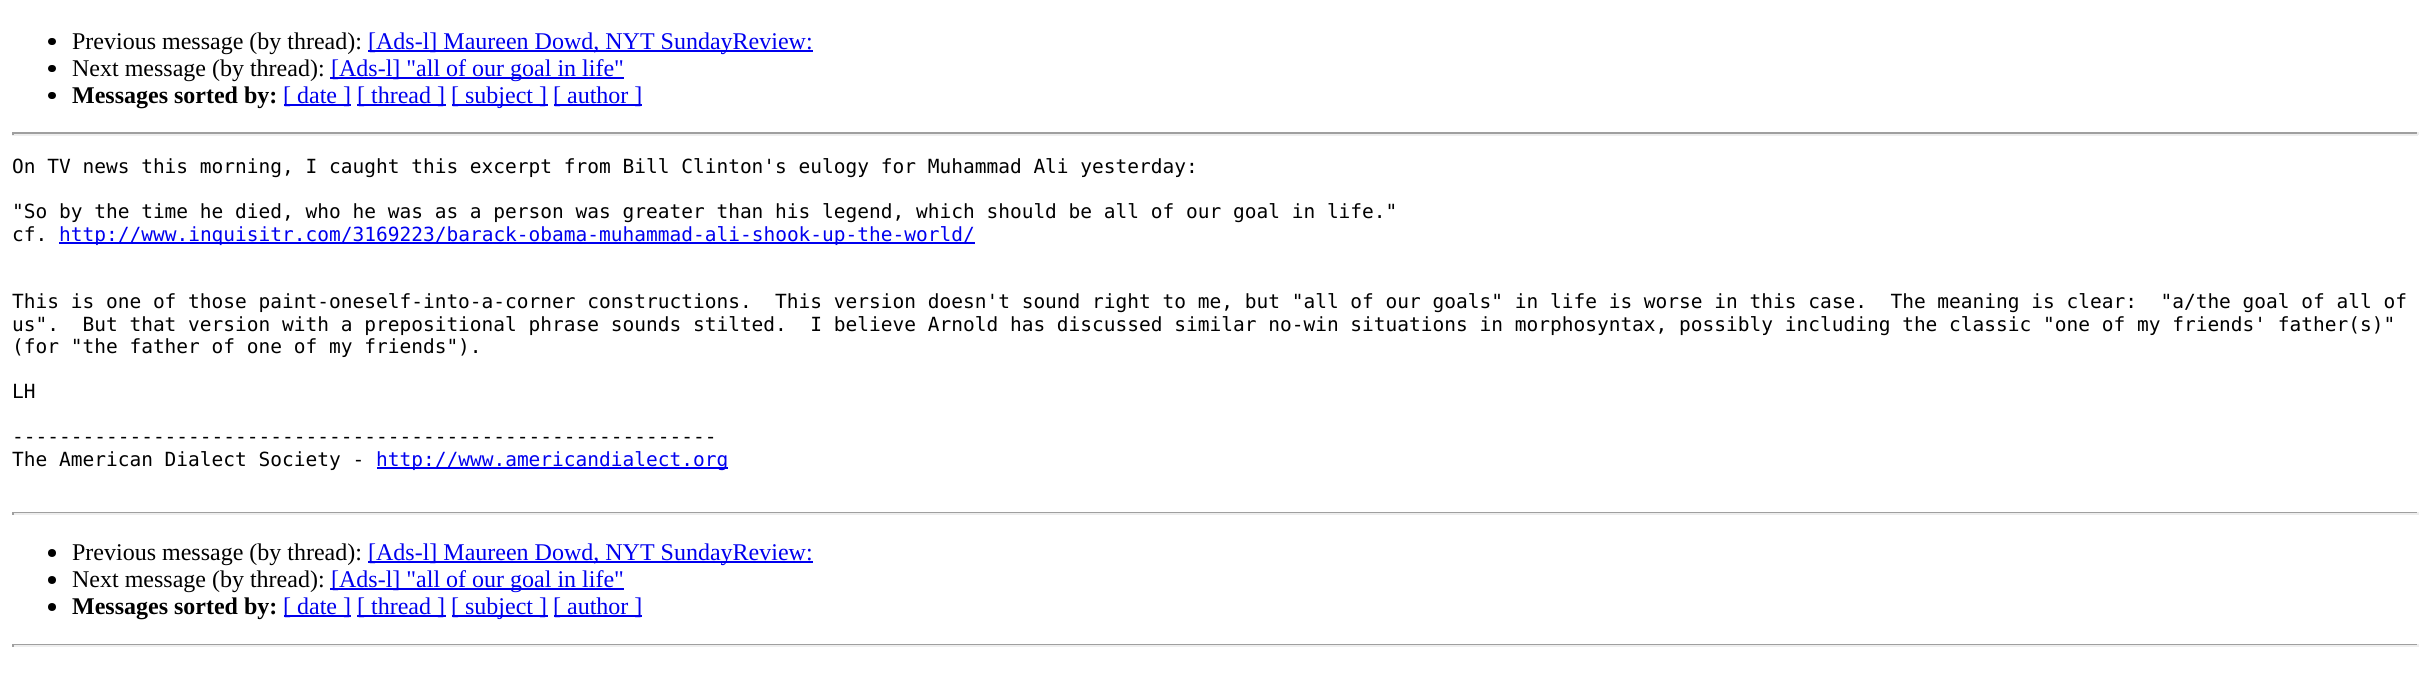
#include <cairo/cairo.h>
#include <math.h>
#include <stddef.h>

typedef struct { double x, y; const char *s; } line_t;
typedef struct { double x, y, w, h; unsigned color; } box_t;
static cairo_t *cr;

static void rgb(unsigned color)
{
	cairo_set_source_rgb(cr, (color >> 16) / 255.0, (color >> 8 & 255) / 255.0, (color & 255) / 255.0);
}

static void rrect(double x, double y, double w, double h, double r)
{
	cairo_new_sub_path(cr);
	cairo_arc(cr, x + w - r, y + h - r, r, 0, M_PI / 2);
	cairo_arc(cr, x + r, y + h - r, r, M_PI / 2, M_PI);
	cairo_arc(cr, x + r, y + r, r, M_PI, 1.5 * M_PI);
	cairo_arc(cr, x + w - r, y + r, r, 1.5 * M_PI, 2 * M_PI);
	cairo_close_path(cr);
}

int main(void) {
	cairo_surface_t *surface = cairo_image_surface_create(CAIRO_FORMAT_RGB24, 2429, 675);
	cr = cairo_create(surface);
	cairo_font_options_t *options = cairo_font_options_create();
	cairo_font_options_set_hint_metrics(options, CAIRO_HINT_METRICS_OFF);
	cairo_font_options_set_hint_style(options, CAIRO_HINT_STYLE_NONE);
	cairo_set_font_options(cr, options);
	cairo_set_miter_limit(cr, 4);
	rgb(0xffffff);
	cairo_paint(cr);
	rgb(0x000000);
	rrect(48, 38, 8, 7, 3.5);
	cairo_fill(cr);
	rgb(0x0000ee);
	cairo_rectangle(cr, 368, 50, 445, 2);
	cairo_fill(cr);
	rgb(0x000000);
	rrect(48, 65, 8, 7, 3.5);
	cairo_fill(cr);
	rgb(0x0000ee);
	cairo_rectangle(cr, 330, 77, 294, 2);
	cairo_fill(cr);
	rgb(0x000000);
	rrect(48, 92, 8, 7, 3.5);
	cairo_fill(cr);
	{
		static const box_t items[] = {
			{284, 104, 67, 2, 0x0000ee},
			{357, 104, 89, 2, 0x0000ee},
			{452, 104, 96, 2, 0x0000ee},
			{554, 104, 88, 2, 0x0000ee},
			{12, 132, 2406, 2, 0x9f9f9f},
			{2417, 132, 2, 3, 0xeeeeee},
			{12, 134, 2406, 2, 0xeeeeee},
			{12, 132, 2, 3, 0x9f9f9f},
			{59, 242, 916, 2, 0x0000ee},
			{377, 467, 351, 2, 0x0000ee},
			{12, 512, 2406, 1, 0x9f9f9f},
			{2417, 512, 2, 3, 0xeeeeee},
			{12, 513, 2406, 2, 0xeeeeee},
			{12, 512, 2, 3, 0x9f9f9f},
		};
		for (size_t i = 0; i < sizeof items / sizeof *items; i++) {
			rgb(items[i].color);
			cairo_rectangle(cr, items[i].x, items[i].y, items[i].w, items[i].h);
			cairo_fill(cr);
		}
	}
	rgb(0x000000);
	cairo_arc(cr, 52, 553, 4, 0, 2 * M_PI);
	cairo_fill(cr);
	rgb(0x0000ee);
	cairo_rectangle(cr, 368, 561, 445, 2);
	cairo_fill(cr);
	rgb(0x000000);
	cairo_arc(cr, 52, 580, 4, 0, 2 * M_PI);
	cairo_fill(cr);
	rgb(0x0000ee);
	cairo_rectangle(cr, 330, 588, 294, 2);
	cairo_fill(cr);
	rgb(0x000000);
	cairo_arc(cr, 52, 607, 4, 0, 2 * M_PI);
	cairo_fill(cr);
	{
		static const box_t items[] = {
			{284, 615, 67, 2, 0x0000ee},
			{357, 615, 89, 2, 0x0000ee},
			{452, 615, 96, 2, 0x0000ee},
			{554, 615, 88, 2, 0x0000ee},
			{12, 644, 2406, 1, 0x9f9f9f},
			{2417, 644, 2, 3, 0xeeeeee},
			{12, 645, 2406, 2, 0xeeeeee},
			{12, 644, 2, 3, 0x9f9f9f},
		};
		for (size_t i = 0; i < sizeof items / sizeof *items; i++) {
			rgb(items[i].color);
			cairo_rectangle(cr, items[i].x, items[i].y, items[i].w, items[i].h);
			cairo_fill(cr);
		}
	}
	cairo_select_font_face(cr, "Liberation Serif", CAIRO_FONT_SLANT_NORMAL, CAIRO_FONT_WEIGHT_NORMAL);
	cairo_set_font_size(cr, 24);
	rgb(0x000000);
	cairo_move_to(cr, 72, 49);
	cairo_show_text(cr, "Previous message (by thread):");
	rgb(0x0000ee);
	cairo_move_to(cr, 368, 49);
	cairo_show_text(cr, "[Ads-l] Maureen Dowd, NYT SundayReview:");
	rgb(0x000000);
	cairo_move_to(cr, 72, 76);
	cairo_show_text(cr, "Next message (by thread):");
	rgb(0x0000ee);
	cairo_move_to(cr, 331, 76);
	cairo_show_text(cr, "[Ads-l] \"all of our goal in life\"");
	cairo_select_font_face(cr, "Liberation Serif", CAIRO_FONT_SLANT_NORMAL, CAIRO_FONT_WEIGHT_BOLD);
	rgb(0x000000);
	cairo_move_to(cr, 72, 103);
	cairo_show_text(cr, "Messages sorted by:");
	cairo_select_font_face(cr, "Liberation Serif", CAIRO_FONT_SLANT_NORMAL, CAIRO_FONT_WEIGHT_NORMAL);
	rgb(0x0000ee);
	{
		static const line_t items[] = {
			{283, 103, "[ date ]"},
			{357, 103, "[ thread ]"},
			{451, 103, "[ subject ]"},
			{553, 103, "[ author ]"},
		};
		for (size_t i = 0; i < sizeof items / sizeof *items; i++) {
			cairo_move_to(cr, items[i].x, items[i].y);
			cairo_show_text(cr, items[i].s);
		}
	}
	cairo_select_font_face(cr, "DejaVu Sans Mono", CAIRO_FONT_SLANT_NORMAL, CAIRO_FONT_WEIGHT_NORMAL);
	cairo_set_font_size(cr, 19.5);
	rgb(0x000000);
	{
		static const line_t items[] = {
			{12, 173, "On TV news this morning, I caught this excerpt from Bill Clinton's eulogy for Muhammad Ali yesterday:"},
			{12, 218, "\"So by the time he died, who he was as a person was greater than his legend, which should be all of our goal in life.\""},
			{12, 241, "cf."},
		};
		for (size_t i = 0; i < sizeof items / sizeof *items; i++) {
			cairo_move_to(cr, items[i].x, items[i].y);
			cairo_show_text(cr, items[i].s);
		}
	}
	rgb(0x0000ee);
	cairo_move_to(cr, 59, 241);
	cairo_show_text(cr, "http://www.inquisitr.com/3169223/barack-obama-muhammad-ali-shook-up-the-world/");
	rgb(0x000000);
	{
		static const line_t items[] = {
			{12, 308, "This is one of those paint-oneself-into-a-corner constructions.  This version doesn't sound right to me, but \"all of our goals\" in life is worse in this case.  The meaning is clear:  \"a/the goal of all of"},
			{12, 331, "us\".  But that version with a prepositional phrase sounds stilted.  I believe Arnold has discussed similar no-win situations in morphosyntax, possibly including the classic \"one of my friends' father(s)\""},
			{12, 353, "(for \"the father of one of my friends\")."},
			{12, 398, "LH"},
			{12, 443, "------------------------------------------------------------"},
			{12, 466, "The American Dialect Society -"},
		};
		for (size_t i = 0; i < sizeof items / sizeof *items; i++) {
			cairo_move_to(cr, items[i].x, items[i].y);
			cairo_show_text(cr, items[i].s);
		}
	}
	rgb(0x0000ee);
	cairo_move_to(cr, 376, 466);
	cairo_show_text(cr, "http://www.americandialect.org");
	cairo_select_font_face(cr, "Liberation Serif", CAIRO_FONT_SLANT_NORMAL, CAIRO_FONT_WEIGHT_NORMAL);
	cairo_set_font_size(cr, 24);
	rgb(0x000000);
	cairo_move_to(cr, 72, 560);
	cairo_show_text(cr, "Previous message (by thread):");
	rgb(0x0000ee);
	cairo_move_to(cr, 368, 560);
	cairo_show_text(cr, "[Ads-l] Maureen Dowd, NYT SundayReview:");
	rgb(0x000000);
	cairo_move_to(cr, 72, 587);
	cairo_show_text(cr, "Next message (by thread):");
	rgb(0x0000ee);
	cairo_move_to(cr, 331, 587);
	cairo_show_text(cr, "[Ads-l] \"all of our goal in life\"");
	cairo_select_font_face(cr, "Liberation Serif", CAIRO_FONT_SLANT_NORMAL, CAIRO_FONT_WEIGHT_BOLD);
	rgb(0x000000);
	cairo_move_to(cr, 72, 614);
	cairo_show_text(cr, "Messages sorted by:");
	cairo_select_font_face(cr, "Liberation Serif", CAIRO_FONT_SLANT_NORMAL, CAIRO_FONT_WEIGHT_NORMAL);
	rgb(0x0000ee);
	{
		static const line_t items[] = {
			{283, 614, "[ date ]"},
			{357, 614, "[ thread ]"},
			{451, 614, "[ subject ]"},
			{553, 614, "[ author ]"},
		};
		for (size_t i = 0; i < sizeof items / sizeof *items; i++) {
			cairo_move_to(cr, items[i].x, items[i].y);
			cairo_show_text(cr, items[i].s);
		}
	}
	cairo_surface_write_to_png(surface, "page.png");
	cairo_font_options_destroy(options);
	cairo_destroy(cr);
	cairo_surface_destroy(surface);
	return 0;
}
